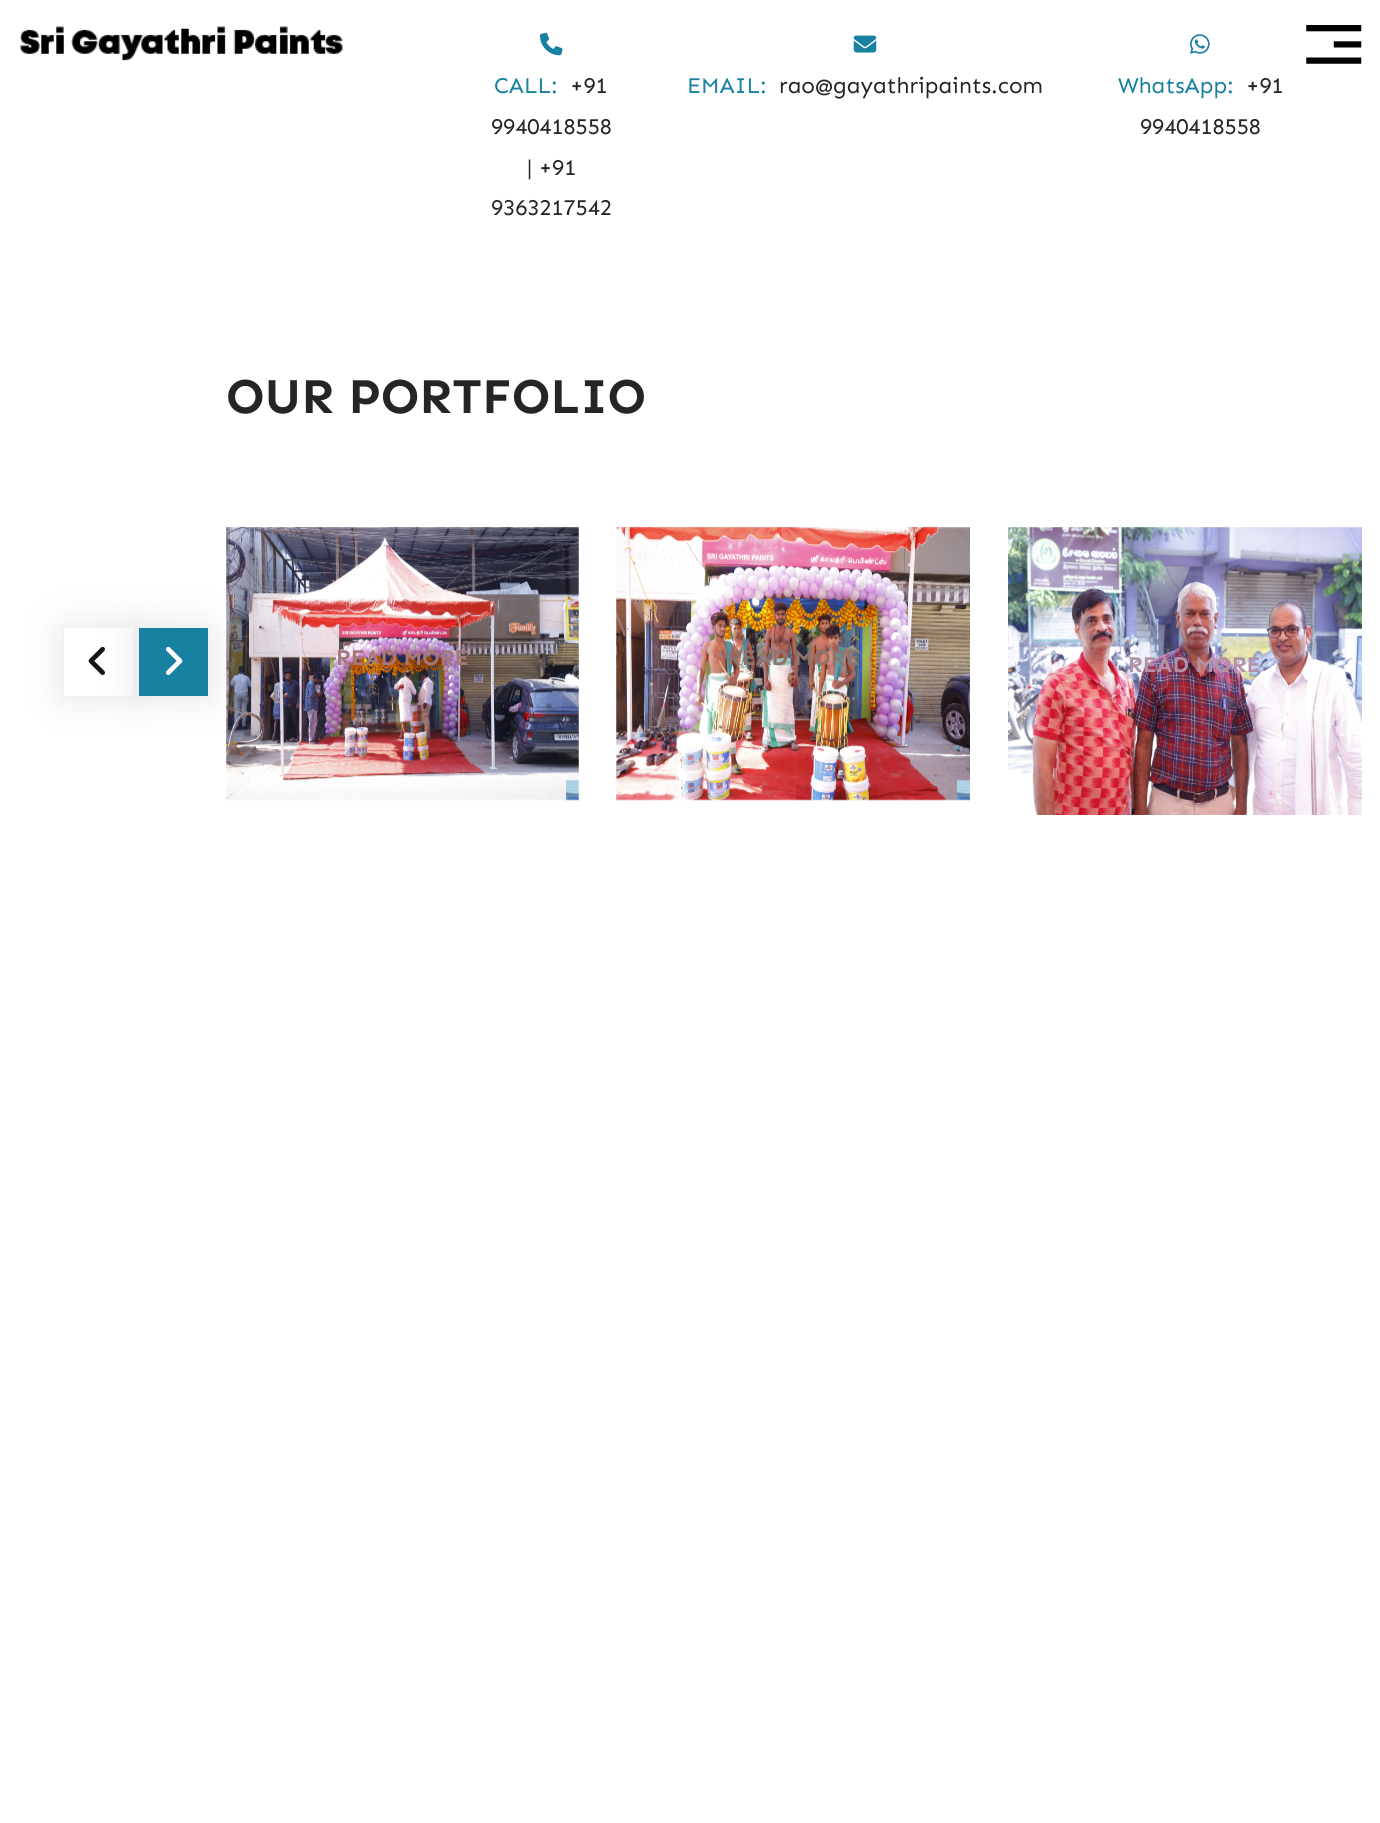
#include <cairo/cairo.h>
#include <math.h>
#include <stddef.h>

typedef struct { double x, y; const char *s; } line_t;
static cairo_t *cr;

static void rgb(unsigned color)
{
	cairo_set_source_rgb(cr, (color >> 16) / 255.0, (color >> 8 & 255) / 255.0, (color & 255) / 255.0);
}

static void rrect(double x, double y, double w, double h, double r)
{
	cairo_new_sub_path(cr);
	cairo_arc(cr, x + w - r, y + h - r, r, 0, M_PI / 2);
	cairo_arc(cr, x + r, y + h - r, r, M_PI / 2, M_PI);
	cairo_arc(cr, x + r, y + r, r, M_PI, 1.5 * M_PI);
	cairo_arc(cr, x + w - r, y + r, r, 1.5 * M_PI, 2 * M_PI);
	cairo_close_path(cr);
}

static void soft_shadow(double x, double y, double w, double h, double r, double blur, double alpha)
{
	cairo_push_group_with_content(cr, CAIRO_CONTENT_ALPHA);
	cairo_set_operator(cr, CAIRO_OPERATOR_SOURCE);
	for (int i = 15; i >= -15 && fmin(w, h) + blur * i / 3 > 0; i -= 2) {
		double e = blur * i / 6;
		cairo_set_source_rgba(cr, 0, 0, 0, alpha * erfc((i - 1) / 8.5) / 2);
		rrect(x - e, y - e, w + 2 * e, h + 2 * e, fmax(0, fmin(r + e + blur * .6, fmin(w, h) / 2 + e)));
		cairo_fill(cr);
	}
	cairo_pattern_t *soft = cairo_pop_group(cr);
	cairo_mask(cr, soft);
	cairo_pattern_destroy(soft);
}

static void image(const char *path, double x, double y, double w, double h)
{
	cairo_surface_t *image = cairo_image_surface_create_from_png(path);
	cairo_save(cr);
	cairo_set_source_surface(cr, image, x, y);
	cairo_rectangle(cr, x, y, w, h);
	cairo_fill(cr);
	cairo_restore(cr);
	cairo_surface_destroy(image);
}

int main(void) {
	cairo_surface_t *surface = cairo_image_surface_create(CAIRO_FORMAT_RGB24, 1380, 1823);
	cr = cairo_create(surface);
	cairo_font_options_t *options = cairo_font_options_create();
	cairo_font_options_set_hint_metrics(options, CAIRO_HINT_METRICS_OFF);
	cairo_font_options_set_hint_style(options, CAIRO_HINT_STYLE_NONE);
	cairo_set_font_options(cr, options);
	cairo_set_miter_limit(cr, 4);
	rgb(0xffffff);
	cairo_paint(cr);
	image("img/1.png", 19, 26, 324, 35);
	image("img/2.png", 1306, 25, 56, 39);
	image("img/3.png", 540, 32, 23, 24);
	image("img/4.png", 853, 35, 24, 18);
	image("img/5.png", 1190, 34, 20, 20);
	rgb(0xe3e4e6);
	soft_shadow(64, 628, 69, 68, 0, 19, 1);
	rgb(0xffffff);
	cairo_rectangle(cr, 64, 628, 69, 68);
	cairo_fill(cr);
	image("img/6.png", 88, 646, 17, 29);
	image("img/8.png", 226, 527, 353, 274);
	rgb(0xe3e4e6);
	soft_shadow(139, 628, 69, 68, 0, 19, 1);
	rgb(0x1880a0);
	cairo_rectangle(cr, 139, 628, 69, 68);
	cairo_fill(cr);
	image("img/7.png", 165, 646, 18, 29);
	image("img/9.png", 616, 527, 354, 274);
	image("img/10.png", 1008, 527, 354, 288);
	cairo_select_font_face(cr, "Sen", CAIRO_FONT_SLANT_NORMAL, CAIRO_FONT_WEIGHT_NORMAL);
	cairo_set_font_size(cr, 22.5);
	cairo_move_to(cr, 494, 93);
	cairo_show_text(cr, "CALL:");
	rgb(0x252525);
	{
		static const line_t items[] = {
			{570, 93, "+91"},
			{491, 134, "9940418558"},
			{527, 175, "| +91"},
			{491, 215, "9363217542"},
		};
		for (size_t i = 0; i < sizeof items / sizeof *items; i++) {
			cairo_move_to(cr, items[i].x, items[i].y);
			cairo_show_text(cr, items[i].s);
		}
	}
	rgb(0x1880a0);
	cairo_move_to(cr, 687, 93);
	cairo_show_text(cr, "EMAIL:");
	rgb(0x252525);
	cairo_move_to(cr, 779, 93);
	cairo_show_text(cr, "rao@gayathripaints.com");
	rgb(0x1880a0);
	cairo_move_to(cr, 1118, 93);
	cairo_show_text(cr, "WhatsApp:");
	rgb(0x252525);
	cairo_move_to(cr, 1246, 93);
	cairo_show_text(cr, "+91");
	cairo_move_to(cr, 1140, 134);
	cairo_show_text(cr, "9940418558");
	cairo_select_font_face(cr, "Sen", CAIRO_FONT_SLANT_NORMAL, CAIRO_FONT_WEIGHT_BOLD);
	cairo_set_font_size(cr, 50);
	cairo_move_to(cr, 226, 413);
	cairo_show_text(cr, "OUR PORTFOLIO");
	cairo_set_font_size(cr, 22.5);
	rgb(0xa4787b);
	cairo_move_to(cr, 336, 665);
	cairo_show_text(cr, "READ MORE");
	rgb(0x8e746f);
	cairo_move_to(cr, 727, 665);
	cairo_show_text(cr, "READ MORE");
	rgb(0xb391a6);
	cairo_move_to(cr, 1128, 672);
	cairo_show_text(cr, "READ MORE");
	cairo_surface_write_to_png(surface, "page.png");
	cairo_font_options_destroy(options);
	cairo_destroy(cr);
	cairo_surface_destroy(surface);
	return 0;
}
